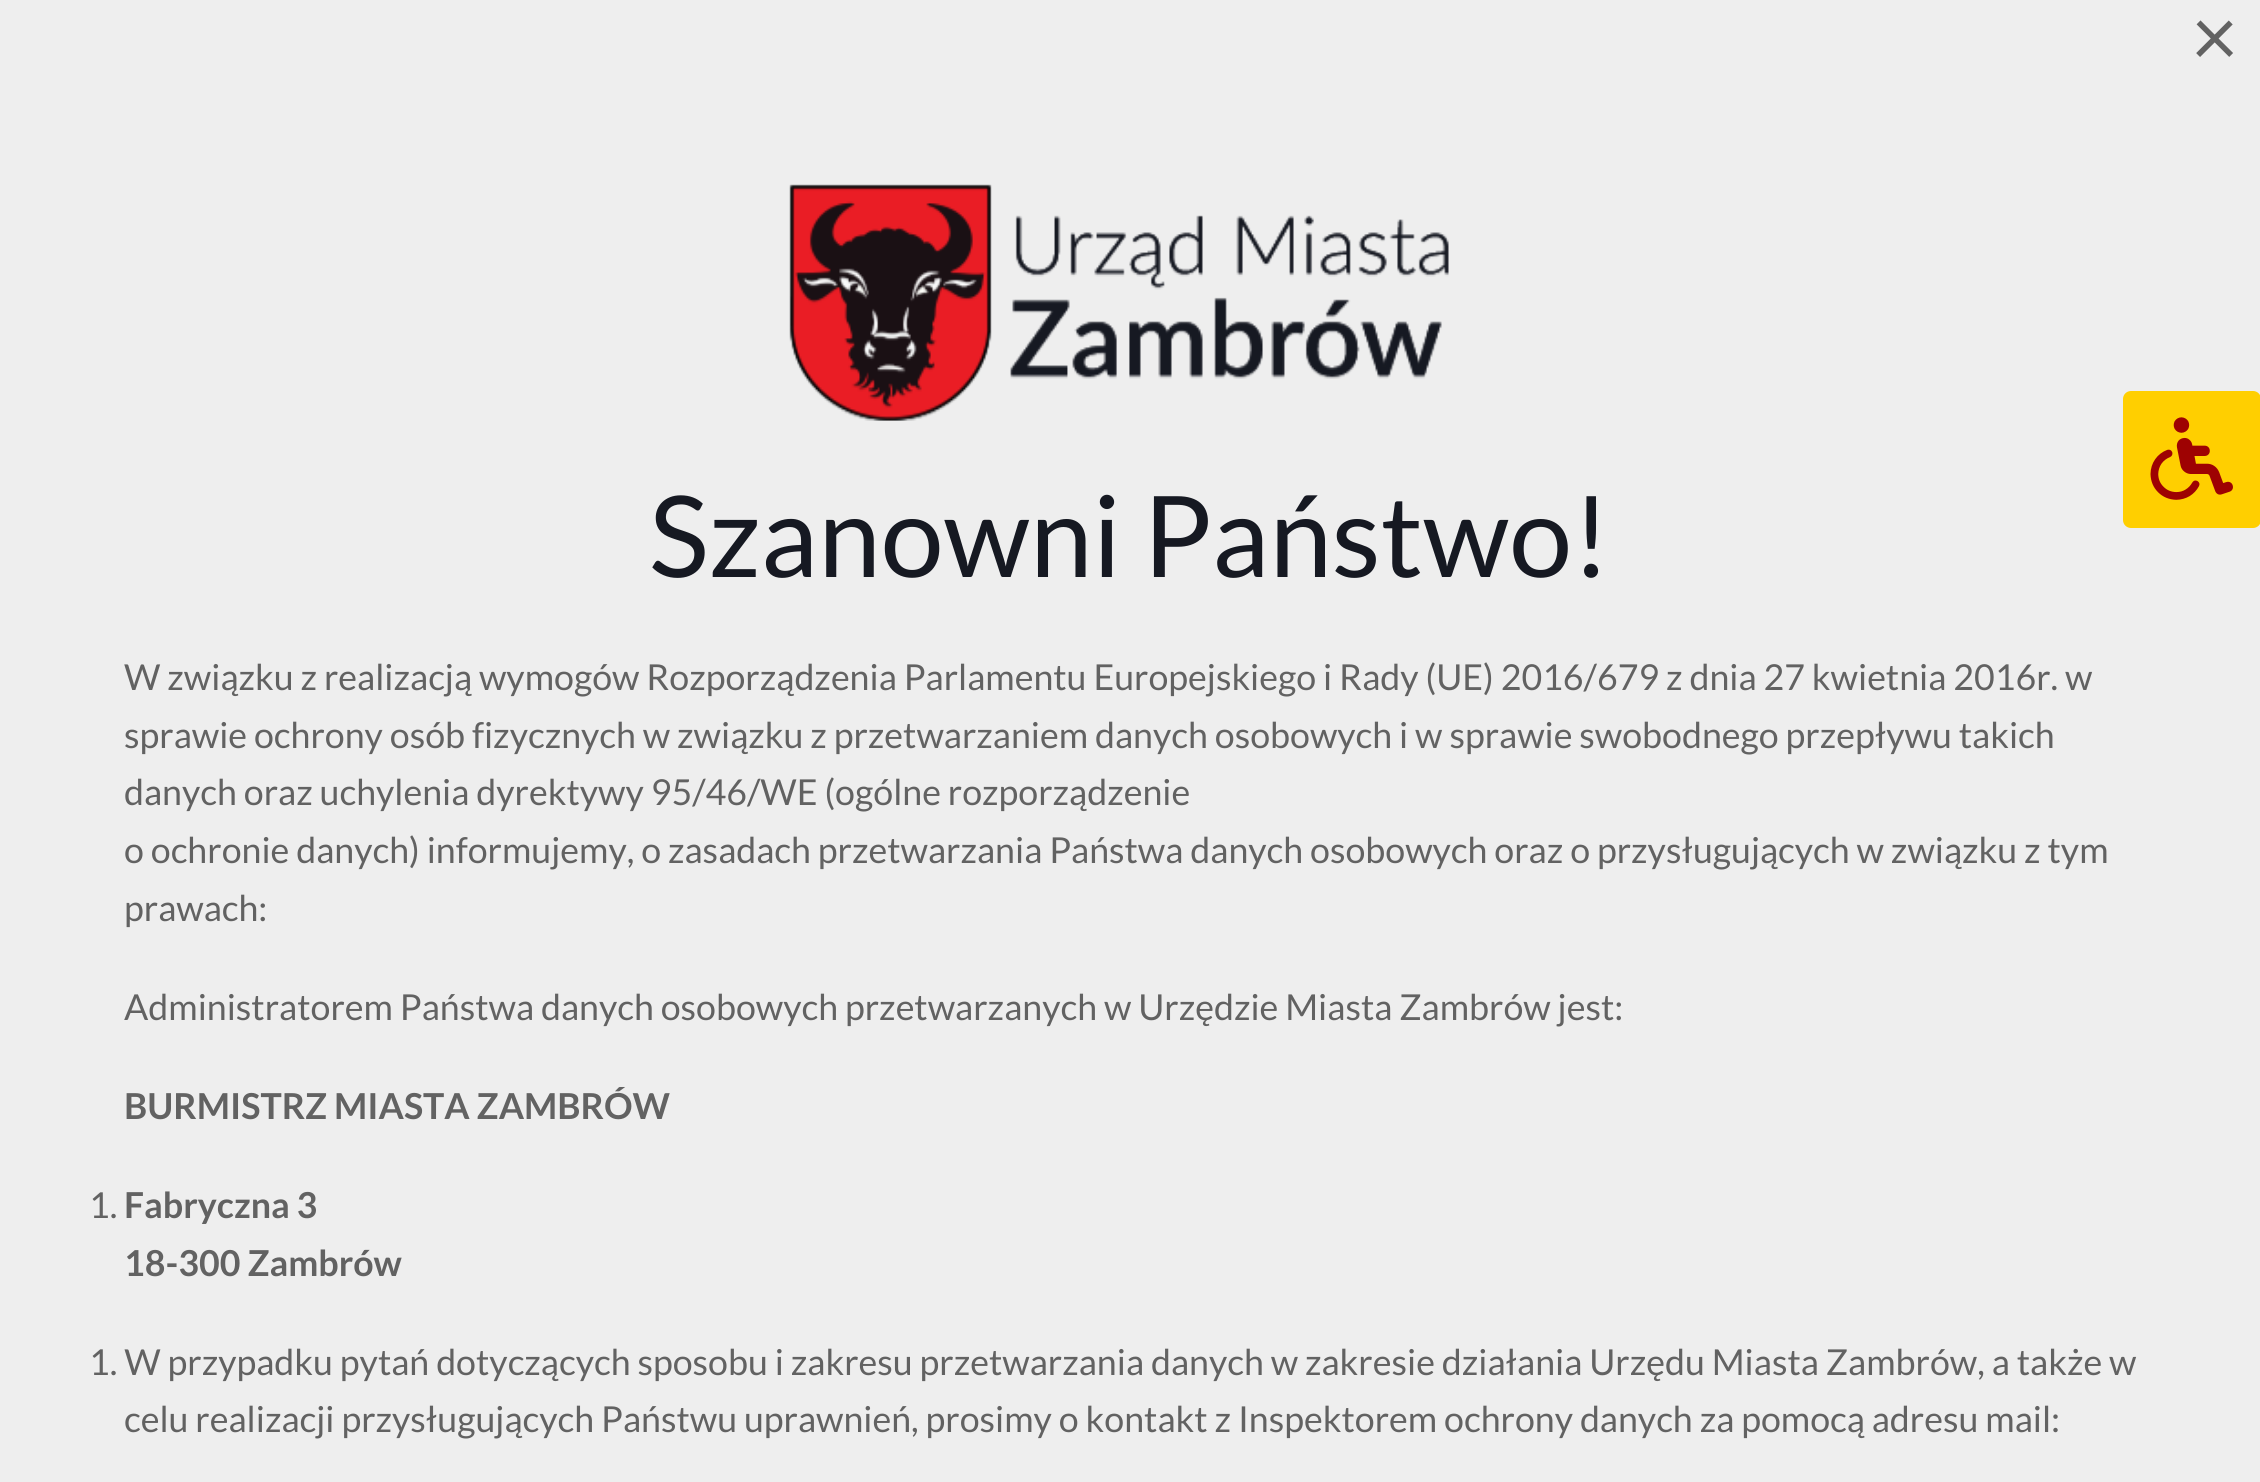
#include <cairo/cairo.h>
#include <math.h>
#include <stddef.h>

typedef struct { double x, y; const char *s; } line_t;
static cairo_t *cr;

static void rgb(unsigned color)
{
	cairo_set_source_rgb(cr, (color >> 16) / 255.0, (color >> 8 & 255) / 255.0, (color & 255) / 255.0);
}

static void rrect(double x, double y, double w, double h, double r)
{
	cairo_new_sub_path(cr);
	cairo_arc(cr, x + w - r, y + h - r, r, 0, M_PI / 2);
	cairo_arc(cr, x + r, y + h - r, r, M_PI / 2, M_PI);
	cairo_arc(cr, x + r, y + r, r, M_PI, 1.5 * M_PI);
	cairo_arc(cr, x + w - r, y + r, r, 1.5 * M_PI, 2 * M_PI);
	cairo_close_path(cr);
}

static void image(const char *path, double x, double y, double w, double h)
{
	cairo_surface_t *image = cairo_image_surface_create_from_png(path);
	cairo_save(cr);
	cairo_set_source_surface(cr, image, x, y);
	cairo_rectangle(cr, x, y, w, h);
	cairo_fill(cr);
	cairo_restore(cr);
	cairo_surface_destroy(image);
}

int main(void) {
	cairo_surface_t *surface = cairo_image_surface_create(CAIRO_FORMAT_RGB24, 2260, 1482);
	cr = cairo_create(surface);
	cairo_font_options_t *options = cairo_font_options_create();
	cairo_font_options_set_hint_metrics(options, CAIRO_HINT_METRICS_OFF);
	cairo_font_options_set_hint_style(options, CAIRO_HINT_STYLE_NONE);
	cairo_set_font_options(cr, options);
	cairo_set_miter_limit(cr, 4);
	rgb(0xeeeeee);
	cairo_paint(cr);
	image("img/1.png", 789, 184, 660, 237);
	rgb(0xffcf00);
	rrect(2123, 391, 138, 137, 8);
	cairo_fill(cr);
	image("img/2.png", 2150, 417, 83, 83);
	cairo_select_font_face(cr, "Lato", CAIRO_FONT_SLANT_NORMAL, CAIRO_FONT_WEIGHT_NORMAL);
	cairo_set_font_size(cr, 82);
	rgb(0x626262);
	cairo_move_to(cr, 2191, 66);
	cairo_show_text(cr, "×");
	cairo_set_font_size(cr, 112.75);
	rgb(0x161922);
	cairo_move_to(cr, 649, 577);
	cairo_show_text(cr, "Szanowni Państwo!");
	cairo_set_font_size(cr, 35.75);
	rgb(0x626262);
	{
		static const line_t items[] = {
			{124, 690, "W związku z realizacją wymogów Rozporządzenia Parlamentu Europejskiego i Rady (UE) 2016/679 z dnia 27 kwietnia 2016r. w"},
			{124, 748, "sprawie ochrony osób fizycznych w związku z przetwarzaniem danych osobowych i w sprawie swobodnego przepływu takich"},
			{124, 805, "danych oraz uchylenia dyrektywy 95/46/WE (ogólne rozporządzenie"},
			{124, 863, "o ochronie danych) informujemy, o zasadach przetwarzania Państwa danych osobowych oraz o przysługujących w związku z tym"},
			{124, 921, "prawach:"},
			{124, 1020, "Administratorem Państwa danych osobowych przetwarzanych w Urzędzie Miasta Zambrów jest:"},
		};
		for (size_t i = 0; i < sizeof items / sizeof *items; i++) {
			cairo_move_to(cr, items[i].x, items[i].y);
			cairo_show_text(cr, items[i].s);
		}
	}
	cairo_select_font_face(cr, "Lato", CAIRO_FONT_SLANT_NORMAL, CAIRO_FONT_WEIGHT_BOLD);
	cairo_move_to(cr, 124, 1119);
	cairo_show_text(cr, "BURMISTRZ MIASTA ZAMBRÓW");
	cairo_select_font_face(cr, "Lato", CAIRO_FONT_SLANT_NORMAL, CAIRO_FONT_WEIGHT_NORMAL);
	cairo_move_to(cr, 89, 1218);
	cairo_show_text(cr, "1.");
	cairo_select_font_face(cr, "Lato", CAIRO_FONT_SLANT_NORMAL, CAIRO_FONT_WEIGHT_BOLD);
	cairo_move_to(cr, 124, 1218);
	cairo_show_text(cr, "Fabryczna 3");
	cairo_move_to(cr, 124, 1276);
	cairo_show_text(cr, "18-300 Zambrów");
	cairo_select_font_face(cr, "Lato", CAIRO_FONT_SLANT_NORMAL, CAIRO_FONT_WEIGHT_NORMAL);
	cairo_move_to(cr, 89, 1375);
	cairo_show_text(cr, "1. W przypadku pytań dotyczących sposobu i zakresu przetwarzania danych w zakresie działania Urzędu Miasta Zambrów, a także w");
	cairo_move_to(cr, 124, 1432);
	cairo_show_text(cr, "celu realizacji przysługujących Państwu uprawnień, prosimy o kontakt z Inspektorem ochrony danych za pomocą adresu mail:");
	cairo_surface_write_to_png(surface, "page.png");
	cairo_font_options_destroy(options);
	cairo_destroy(cr);
	cairo_surface_destroy(surface);
	return 0;
}
